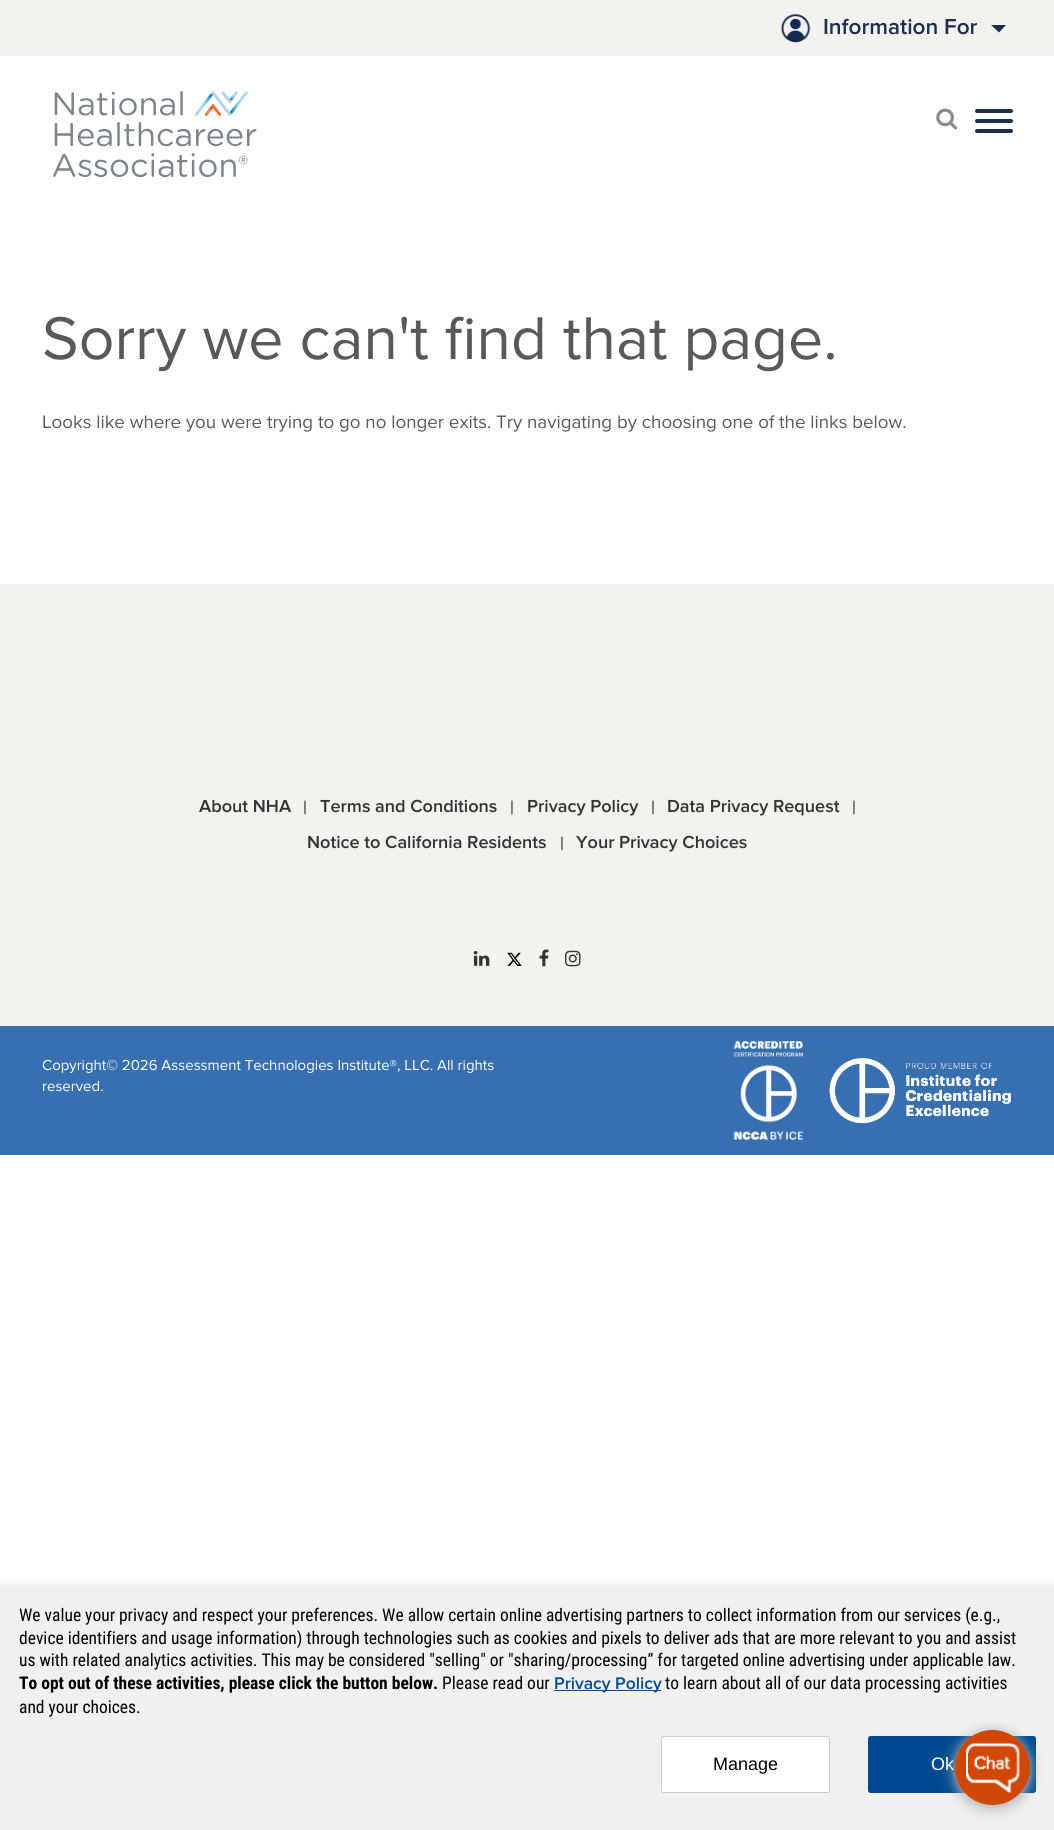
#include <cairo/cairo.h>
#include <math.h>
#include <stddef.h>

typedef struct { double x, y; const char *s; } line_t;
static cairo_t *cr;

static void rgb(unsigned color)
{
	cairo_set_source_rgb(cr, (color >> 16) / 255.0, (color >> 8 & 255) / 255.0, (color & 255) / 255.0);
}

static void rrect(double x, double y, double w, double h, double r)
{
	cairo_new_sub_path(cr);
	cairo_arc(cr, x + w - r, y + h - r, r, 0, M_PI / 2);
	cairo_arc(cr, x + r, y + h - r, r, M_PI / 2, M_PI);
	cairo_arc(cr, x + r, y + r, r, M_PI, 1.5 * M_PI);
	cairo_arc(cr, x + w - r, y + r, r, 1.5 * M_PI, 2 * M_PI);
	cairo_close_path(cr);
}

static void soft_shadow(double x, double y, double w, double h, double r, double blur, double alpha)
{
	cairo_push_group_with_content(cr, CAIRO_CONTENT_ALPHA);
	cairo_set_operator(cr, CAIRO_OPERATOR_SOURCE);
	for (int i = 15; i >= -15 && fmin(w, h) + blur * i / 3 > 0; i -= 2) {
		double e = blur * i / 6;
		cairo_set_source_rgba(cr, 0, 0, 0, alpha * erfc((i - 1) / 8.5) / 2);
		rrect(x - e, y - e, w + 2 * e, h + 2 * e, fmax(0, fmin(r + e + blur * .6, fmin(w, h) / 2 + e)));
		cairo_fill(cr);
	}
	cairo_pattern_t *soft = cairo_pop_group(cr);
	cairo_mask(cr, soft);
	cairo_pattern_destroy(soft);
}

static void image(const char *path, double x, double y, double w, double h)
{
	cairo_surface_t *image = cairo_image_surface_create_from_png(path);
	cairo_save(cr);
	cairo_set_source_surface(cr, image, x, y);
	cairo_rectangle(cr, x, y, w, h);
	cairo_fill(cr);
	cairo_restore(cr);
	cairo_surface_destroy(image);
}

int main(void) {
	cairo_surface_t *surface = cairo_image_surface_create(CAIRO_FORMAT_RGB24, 1054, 1830);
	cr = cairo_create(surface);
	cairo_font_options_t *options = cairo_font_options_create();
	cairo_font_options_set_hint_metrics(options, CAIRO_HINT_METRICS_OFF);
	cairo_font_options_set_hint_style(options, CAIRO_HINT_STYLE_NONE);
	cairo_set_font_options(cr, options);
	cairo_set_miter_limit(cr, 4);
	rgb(0xffffff);
	cairo_paint(cr);
	rgb(0xf3f2ef);
	cairo_rectangle(cr, 0, 0, 1054, 56);
	cairo_fill(cr);
	image("img/1.png", 781, 14, 30, 29);
	rgb(0x1a2e50);
	cairo_new_path(cr);
	cairo_move_to(cr, 991, 25);
	cairo_line_to(cr, 1006, 25);
	cairo_line_to(cr, 999, 32.5);
	cairo_close_path(cr);
	cairo_fill(cr);
	image("img/2.png", 53, 91, 204, 87);
	image("img/3.png", 936, 108, 22, 22);
	rrect(975, 109, 38, 4, 2);
	cairo_fill(cr);
	rrect(975, 119, 38, 4, 2);
	cairo_fill(cr);
	rrect(975, 129, 38, 4, 2);
	cairo_fill(cr);
	rgb(0xf3f2ef);
	cairo_rectangle(cr, 0, 584, 1054, 442);
	cairo_fill(cr);
	image("img/4.png", 473, 951, 17, 15);
	image("img/5.png", 507, 952, 15, 14);
	image("img/6.png", 539, 949, 10, 18);
	image("img/7.png", 565, 950, 16, 17);
	rgb(0x376fb0);
	cairo_rectangle(cr, 0, 1026, 1054, 129);
	cairo_fill(cr);
	image("img/8.png", 733, 1040, 70, 100);
	image("img/9.png", 829, 1058, 182, 66);
	rgb(0x000000);
	soft_shadow(0, 1590, 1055, 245, 0, 7.5, 0.15);
	rgb(0xf0f0f0);
	cairo_rectangle(cr, 0, 1585, 1054, 245);
	cairo_fill(cr);
	rgb(0x004b91);
	cairo_rectangle(cr, 554, 1690, 107, 1);
	cairo_fill(cr);
	rgb(0xffffff);
	rrect(661.5, 1736.5, 168, 56, 2);
	cairo_fill_preserve(cr);
	rgb(0xcccccc);
	cairo_set_line_width(cr, 1);
	cairo_stroke(cr);
	rgb(0x014a91);
	rrect(868, 1736, 168, 57, 2.5);
	cairo_fill(cr);
	rgb(0xb5b5b5);
	soft_shadow(954, 1731, 77, 78, 38.5, 6, 1);
	rgb(0xd14708);
	cairo_arc(cr, 992.5, 1767.5, 37.5, 0, 2 * M_PI);
	cairo_fill(cr);
	image("img/10.png", 966, 1743, 54, 50);
	cairo_select_font_face(cr, "Proxima Nova SemiBold", CAIRO_FONT_SLANT_NORMAL, CAIRO_FONT_WEIGHT_NORMAL);
	cairo_set_font_size(cr, 22.5);
	rgb(0x1a2e50);
	cairo_move_to(cr, 823, 34);
	cairo_show_text(cr, "Information For");
	cairo_select_font_face(cr, "Proxima Nova", CAIRO_FONT_SLANT_NORMAL, CAIRO_FONT_WEIGHT_NORMAL);
	cairo_set_font_size(cr, 62.5);
	rgb(0x58595b);
	cairo_move_to(cr, 42, 359);
	cairo_show_text(cr, "Sorry we can't find that page.");
	cairo_set_font_size(cr, 18.75);
	cairo_move_to(cr, 42, 428);
	cairo_show_text(cr, "Looks like where you were trying to go no longer exits. Try navigating by choosing one of the links below.");
	cairo_select_font_face(cr, "Proxima Nova SemiBold", CAIRO_FONT_SLANT_NORMAL, CAIRO_FONT_WEIGHT_NORMAL);
	cairo_set_font_size(cr, 18.1);
	rgb(0x333333);
	cairo_move_to(cr, 199, 812);
	cairo_show_text(cr, "About NHA");
	cairo_select_font_face(cr, "Roboto Condensed", CAIRO_FONT_SLANT_NORMAL, CAIRO_FONT_WEIGHT_NORMAL);
	cairo_set_font_size(cr, 16);
	cairo_move_to(cr, 303, 812);
	cairo_show_text(cr, "|");
	cairo_select_font_face(cr, "Proxima Nova SemiBold", CAIRO_FONT_SLANT_NORMAL, CAIRO_FONT_WEIGHT_NORMAL);
	cairo_set_font_size(cr, 18.1);
	cairo_move_to(cr, 320, 812);
	cairo_show_text(cr, "Terms and Conditions");
	cairo_select_font_face(cr, "Roboto Condensed", CAIRO_FONT_SLANT_NORMAL, CAIRO_FONT_WEIGHT_NORMAL);
	cairo_set_font_size(cr, 16);
	cairo_move_to(cr, 510, 812);
	cairo_show_text(cr, "|");
	cairo_select_font_face(cr, "Proxima Nova SemiBold", CAIRO_FONT_SLANT_NORMAL, CAIRO_FONT_WEIGHT_NORMAL);
	cairo_set_font_size(cr, 18.1);
	cairo_move_to(cr, 527, 812);
	cairo_show_text(cr, "Privacy Policy");
	cairo_select_font_face(cr, "Roboto Condensed", CAIRO_FONT_SLANT_NORMAL, CAIRO_FONT_WEIGHT_NORMAL);
	cairo_set_font_size(cr, 16);
	cairo_move_to(cr, 651, 812);
	cairo_show_text(cr, "|");
	cairo_select_font_face(cr, "Proxima Nova SemiBold", CAIRO_FONT_SLANT_NORMAL, CAIRO_FONT_WEIGHT_NORMAL);
	cairo_set_font_size(cr, 18.1);
	cairo_move_to(cr, 667, 812);
	cairo_show_text(cr, "Data Privacy Request");
	cairo_select_font_face(cr, "Roboto Condensed", CAIRO_FONT_SLANT_NORMAL, CAIRO_FONT_WEIGHT_NORMAL);
	cairo_set_font_size(cr, 16);
	cairo_move_to(cr, 852, 812);
	cairo_show_text(cr, "|");
	cairo_select_font_face(cr, "Proxima Nova SemiBold", CAIRO_FONT_SLANT_NORMAL, CAIRO_FONT_WEIGHT_NORMAL);
	cairo_set_font_size(cr, 18.1);
	cairo_move_to(cr, 307, 848);
	cairo_show_text(cr, "Notice to California Residents");
	cairo_select_font_face(cr, "Roboto Condensed", CAIRO_FONT_SLANT_NORMAL, CAIRO_FONT_WEIGHT_NORMAL);
	cairo_set_font_size(cr, 16);
	cairo_move_to(cr, 560, 848);
	cairo_show_text(cr, "|");
	cairo_select_font_face(cr, "Proxima Nova SemiBold", CAIRO_FONT_SLANT_NORMAL, CAIRO_FONT_WEIGHT_NORMAL);
	cairo_set_font_size(cr, 18.1);
	cairo_move_to(cr, 576, 848);
	cairo_show_text(cr, "Your Privacy Choices");
	cairo_select_font_face(cr, "Proxima Nova", CAIRO_FONT_SLANT_NORMAL, CAIRO_FONT_WEIGHT_NORMAL);
	cairo_set_font_size(cr, 15);
	rgb(0xffffff);
	cairo_move_to(cr, 42, 1070);
	cairo_show_text(cr, "Copyright© 2026 Assessment Technologies Institute®, LLC. All rights");
	cairo_move_to(cr, 42, 1091);
	cairo_show_text(cr, "reserved.");
	cairo_select_font_face(cr, "Roboto Condensed", CAIRO_FONT_SLANT_NORMAL, CAIRO_FONT_WEIGHT_NORMAL);
	cairo_set_font_size(cr, 17.5);
	rgb(0x000000);
	{
		static const line_t items[] = {
			{19, 1621, "We value your privacy and respect your preferences. We allow certain online advertising partners to collect information from our services (e.g.,"},
			{19, 1644, "device identifiers and usage information) through technologies such as cookies and pixels to deliver ads that are more relevant to you and assist"},
			{19, 1666, "us with related analytics activities. This may be considered \"selling\" or \"sharing/processing” for targeted online advertising under applicable law."},
		};
		for (size_t i = 0; i < sizeof items / sizeof *items; i++) {
			cairo_move_to(cr, items[i].x, items[i].y);
			cairo_show_text(cr, items[i].s);
		}
	}
	cairo_select_font_face(cr, "Roboto Condensed", CAIRO_FONT_SLANT_NORMAL, CAIRO_FONT_WEIGHT_BOLD);
	cairo_move_to(cr, 19, 1689);
	cairo_show_text(cr, "To opt out of these activities, please click the button below.");
	cairo_select_font_face(cr, "Roboto Condensed", CAIRO_FONT_SLANT_NORMAL, CAIRO_FONT_WEIGHT_NORMAL);
	cairo_move_to(cr, 442, 1689);
	cairo_show_text(cr, "Please read our");
	cairo_select_font_face(cr, "Proxima Nova SemiBold", CAIRO_FONT_SLANT_NORMAL, CAIRO_FONT_WEIGHT_NORMAL);
	rgb(0x004b91);
	cairo_move_to(cr, 554, 1689);
	cairo_show_text(cr, "Privacy Policy");
	cairo_select_font_face(cr, "Roboto Condensed", CAIRO_FONT_SLANT_NORMAL, CAIRO_FONT_WEIGHT_NORMAL);
	rgb(0x000000);
	cairo_move_to(cr, 665, 1689);
	cairo_show_text(cr, "to learn about all of our data processing activities");
	cairo_move_to(cr, 19, 1713);
	cairo_show_text(cr, "and your choices.");
	cairo_select_font_face(cr, "Liberation Sans", CAIRO_FONT_SLANT_NORMAL, CAIRO_FONT_WEIGHT_NORMAL);
	cairo_set_font_size(cr, 18);
	cairo_move_to(cr, 713, 1770);
	cairo_show_text(cr, "Manage");
	rgb(0xffffff);
	cairo_move_to(cr, 931, 1770);
	cairo_show_text(cr, "Ok");
	cairo_surface_write_to_png(surface, "page.png");
	cairo_font_options_destroy(options);
	cairo_destroy(cr);
	cairo_surface_destroy(surface);
	return 0;
}
